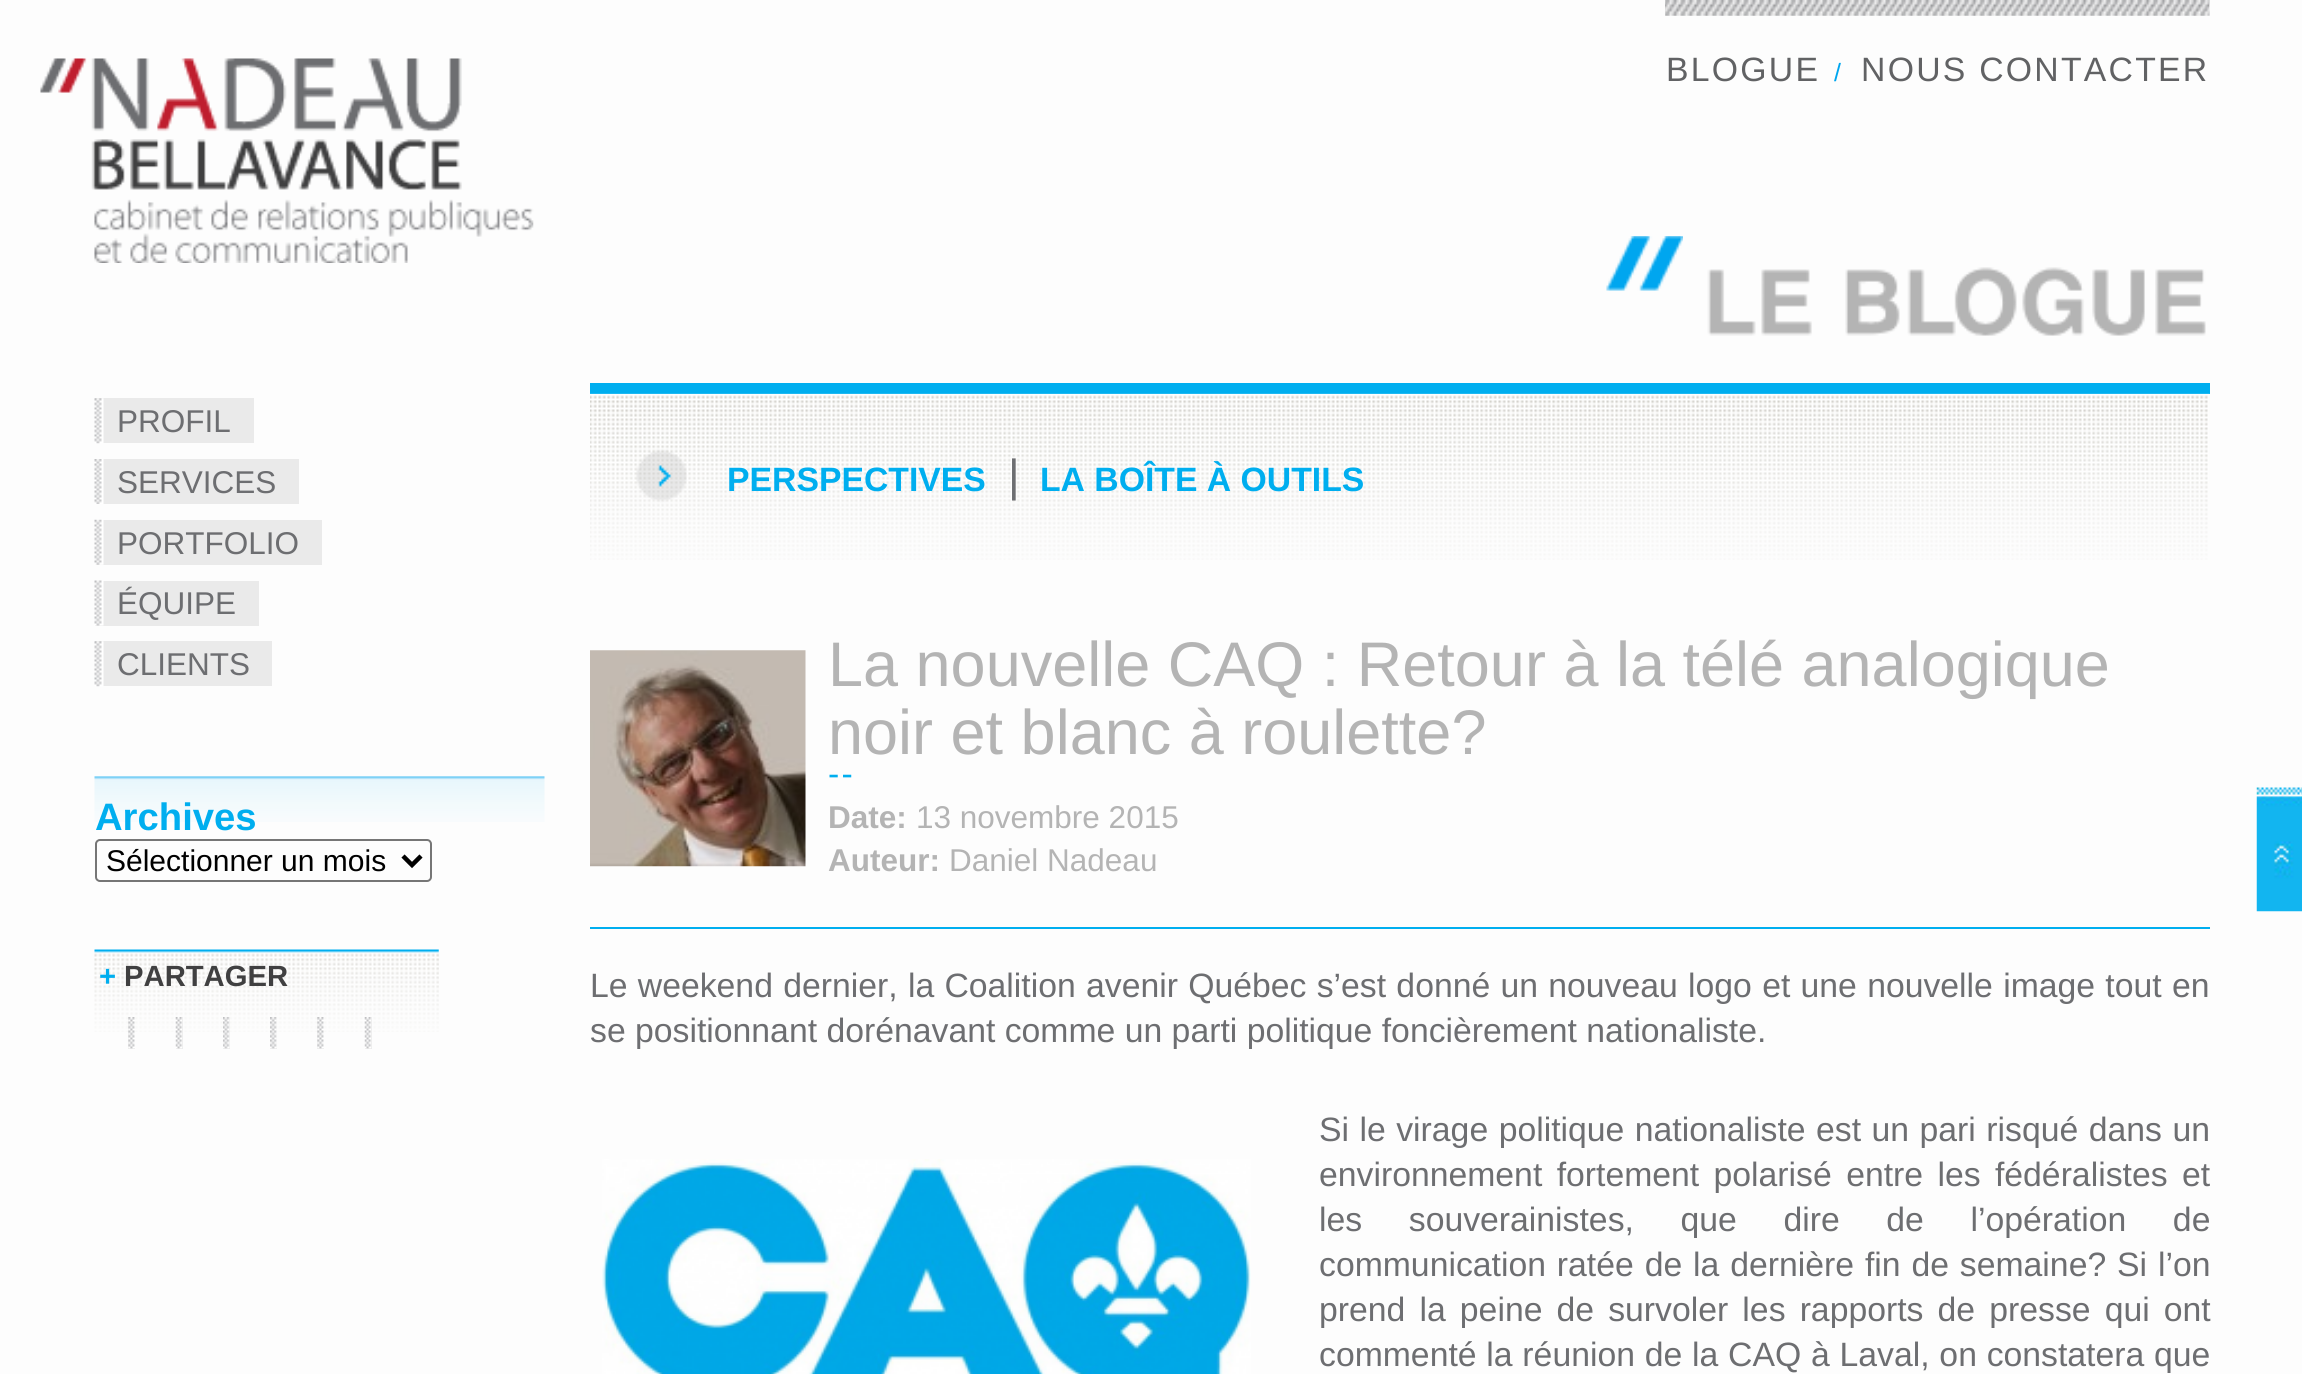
#include <cairo/cairo.h>
#include <math.h>
#include <stddef.h>

typedef struct { double x, y; const char *s; } line_t;
static cairo_t *cr;

static void rgb(unsigned color)
{
	cairo_set_source_rgb(cr, (color >> 16) / 255.0, (color >> 8 & 255) / 255.0, (color & 255) / 255.0);
}

static void tracked(double x, double y, const char *s, double letter, double word)
{
	cairo_move_to(cr, x, y);
	while (*s) {
		char ch[5] = {0};
		int n = 0;
		do ch[n++] = *s++; while ((*s & 0xC0) == 0x80);
		cairo_show_text(cr, ch);
		cairo_rel_move_to(cr, letter + word * (*ch == ' '), 0);
	}
}

static void rrect(double x, double y, double w, double h, double r)
{
	cairo_new_sub_path(cr);
	cairo_arc(cr, x + w - r, y + h - r, r, 0, M_PI / 2);
	cairo_arc(cr, x + r, y + h - r, r, M_PI / 2, M_PI);
	cairo_arc(cr, x + r, y + r, r, M_PI, 1.5 * M_PI);
	cairo_arc(cr, x + w - r, y + r, r, 1.5 * M_PI, 2 * M_PI);
	cairo_close_path(cr);
}

static void image(const char *path, double x, double y, double w, double h)
{
	cairo_surface_t *image = cairo_image_surface_create_from_png(path);
	cairo_save(cr);
	cairo_set_source_surface(cr, image, x, y);
	cairo_rectangle(cr, x, y, w, h);
	cairo_fill(cr);
	cairo_restore(cr);
	cairo_surface_destroy(image);
}

int main(void) {
	cairo_surface_t *surface = cairo_image_surface_create(CAIRO_FORMAT_RGB24, 2302, 1374);
	cr = cairo_create(surface);
	cairo_font_options_t *options = cairo_font_options_create();
	cairo_font_options_set_hint_metrics(options, CAIRO_HINT_METRICS_OFF);
	cairo_font_options_set_hint_style(options, CAIRO_HINT_STYLE_NONE);
	cairo_set_font_options(cr, options);
	cairo_set_miter_limit(cr, 4);
	rgb(0xfdfdfd);
	cairo_paint(cr);
	image("img/1.png", 40, 58, 494, 205);
	image("img/2.png", 1665, 0, 545, 16);
	rgb(0xeaeaea);
	cairo_rectangle(cr, 95, 398, 159, 45);
	cairo_fill(cr);
	image("img/3.png", 94, 398, 10, 46);
	cairo_rectangle(cr, 103, 459, 196, 45);
	cairo_fill(cr);
	image("img/4.png", 94, 459, 10, 45);
	cairo_rectangle(cr, 95, 520, 227, 45);
	cairo_fill(cr);
	image("img/5.png", 94, 519, 10, 46);
	cairo_rectangle(cr, 95, 581, 164, 45);
	cairo_fill(cr);
	image("img/6.png", 94, 580, 10, 46);
	cairo_rectangle(cr, 95, 641, 177, 45);
	cairo_fill(cr);
	image("img/3.png", 94, 641, 10, 46);
	image("img/7.png", 94, 776, 451, 46);
	rrect(96, 840, 335, 41, 4);
	rgb(0x767676);
	cairo_stroke(cr);
	cairo_new_path(cr);
	cairo_move_to(cr, 403, 856);
	cairo_line_to(cr, 412, 865);
	cairo_line_to(cr, 421, 856);
	rgb(0x000000);
	cairo_set_line_width(cr, 4.5);
	cairo_stroke(cr);
	image("img/8.png", 94, 949, 345, 83);
	rgb(0xeaeaea);
	cairo_rectangle(cr, 128, 1017, 7, 32);
	cairo_fill(cr);
	image("img/9.png", 128, 1017, 7, 32);
	cairo_rectangle(cr, 176, 1017, 7, 32);
	cairo_fill(cr);
	image("img/10.png", 175, 1017, 8, 32);
	cairo_rectangle(cr, 223, 1017, 7, 32);
	cairo_fill(cr);
	image("img/11.png", 223, 1017, 7, 32);
	cairo_rectangle(cr, 270, 1017, 7, 32);
	cairo_fill(cr);
	image("img/12.png", 270, 1017, 7, 32);
	cairo_rectangle(cr, 317, 1017, 7, 32);
	cairo_fill(cr);
	image("img/9.png", 317, 1017, 7, 32);
	cairo_rectangle(cr, 365, 1017, 7, 32);
	cairo_fill(cr);
	image("img/10.png", 364, 1017, 8, 32);
	image("img/13.png", 1606, 236, 77, 55);
	image("img/14.png", 1707, 269, 105, 67);
	image("img/15.png", 1845, 267, 361, 69);
	rgb(0x00aeef);
	cairo_rectangle(cr, 590, 383, 1620, 11);
	cairo_fill(cr);
	image("img/16.png", 590, 393, 1620, 167);
	image("img/17.png", 590, 650, 216, 217);
	cairo_rectangle(cr, 590, 927, 1620, 2);
	cairo_fill(cr);
	image("img/18.png", 602, 1159, 649, 215);
	image("img/19.png", 2256, 787, 46, 125);
	cairo_select_font_face(cr, "Liberation Sans", CAIRO_FONT_SLANT_NORMAL, CAIRO_FONT_WEIGHT_NORMAL);
	cairo_set_font_size(cr, 33.75);
	rgb(0x616264);
	tracked(1666, 81, "BLOGUE", 2.25, 0);
	cairo_set_font_size(cr, 25);
	rgb(0x00a6ef);
	cairo_move_to(cr, 1834, 81);
	cairo_show_text(cr, "/");
	cairo_set_font_size(cr, 33.75);
	rgb(0x616264);
	tracked(1861, 81, "NOUS CONTACTER", 2.25, 0);
	cairo_set_font_size(cr, 31.5);
	rgb(0x6d6e71);
	{
		static const line_t items[] = {
			{117, 432, "PROFIL"},
			{117, 493, "SERVICES"},
			{117, 554, "PORTFOLIO"},
			{117, 614, "ÉQUIPE"},
			{117, 675, "CLIENTS"},
		};
		for (size_t i = 0; i < sizeof items / sizeof *items; i++) {
			cairo_move_to(cr, items[i].x, items[i].y);
			cairo_show_text(cr, items[i].s);
		}
	}
	cairo_select_font_face(cr, "Liberation Sans", CAIRO_FONT_SLANT_NORMAL, CAIRO_FONT_WEIGHT_BOLD);
	cairo_set_font_size(cr, 38.25);
	rgb(0x00aeef);
	cairo_move_to(cr, 95, 830);
	cairo_show_text(cr, "Archives");
	cairo_select_font_face(cr, "Liberation Sans", CAIRO_FONT_SLANT_NORMAL, CAIRO_FONT_WEIGHT_NORMAL);
	cairo_set_font_size(cr, 30);
	rgb(0x000000);
	cairo_move_to(cr, 106, 871);
	cairo_show_text(cr, "Sélectionner un mois");
	cairo_select_font_face(cr, "Liberation Sans", CAIRO_FONT_SLANT_NORMAL, CAIRO_FONT_WEIGHT_BOLD);
	cairo_set_font_size(cr, 29.25);
	rgb(0x00aeef);
	cairo_move_to(cr, 99, 986);
	cairo_show_text(cr, "+");
	rgb(0x404041);
	cairo_move_to(cr, 124, 986);
	cairo_show_text(cr, "PARTAGER");
	cairo_set_font_size(cr, 33.75);
	rgb(0x00aeef);
	cairo_move_to(cr, 727, 491);
	cairo_show_text(cr, "PERSPECTIVES");
	cairo_select_font_face(cr, "Liberation Sans", CAIRO_FONT_SLANT_NORMAL, CAIRO_FONT_WEIGHT_NORMAL);
	cairo_set_font_size(cr, 45);
	rgb(0x6d6e71);
	cairo_move_to(cr, 1008, 491);
	cairo_show_text(cr, "|");
	cairo_select_font_face(cr, "Liberation Sans", CAIRO_FONT_SLANT_NORMAL, CAIRO_FONT_WEIGHT_BOLD);
	cairo_set_font_size(cr, 33.75);
	rgb(0x00aeef);
	cairo_move_to(cr, 1040, 491);
	cairo_show_text(cr, "LA BOÎTE À OUTILS");
	cairo_select_font_face(cr, "Liberation Sans", CAIRO_FONT_SLANT_NORMAL, CAIRO_FONT_WEIGHT_NORMAL);
	cairo_set_font_size(cr, 63);
	rgb(0xb4b4b4);
	cairo_move_to(cr, 828, 686);
	cairo_show_text(cr, "La nouvelle CAQ : Retour à la télé analogique");
	cairo_move_to(cr, 828, 754);
	cairo_show_text(cr, "noir et blanc à roulette?");
	cairo_set_font_size(cr, 33.75);
	rgb(0x00aeef);
	tracked(828, 785, "--", 2.25, 0);
	cairo_select_font_face(cr, "Liberation Sans", CAIRO_FONT_SLANT_NORMAL, CAIRO_FONT_WEIGHT_BOLD);
	cairo_set_font_size(cr, 31.5);
	rgb(0xb4b4b4);
	cairo_move_to(cr, 828, 828);
	cairo_show_text(cr, "Date:");
	cairo_select_font_face(cr, "Liberation Sans", CAIRO_FONT_SLANT_NORMAL, CAIRO_FONT_WEIGHT_NORMAL);
	cairo_move_to(cr, 916, 828);
	cairo_show_text(cr, "13 novembre 2015");
	cairo_select_font_face(cr, "Liberation Sans", CAIRO_FONT_SLANT_NORMAL, CAIRO_FONT_WEIGHT_BOLD);
	cairo_move_to(cr, 828, 871);
	cairo_show_text(cr, "Auteur:");
	cairo_select_font_face(cr, "Liberation Sans", CAIRO_FONT_SLANT_NORMAL, CAIRO_FONT_WEIGHT_NORMAL);
	cairo_move_to(cr, 949, 871);
	cairo_show_text(cr, "Daniel Nadeau");
	cairo_set_font_size(cr, 33.75);
	rgb(0x6d6e71);
	tracked(590, 997, "Le weekend dernier, la Coalition avenir Québec s’est donné un nouveau logo et une nouvelle image tout en", 0, 0.9);
	cairo_move_to(cr, 590, 1042);
	cairo_show_text(cr, "se positionnant dorénavant comme un parti politique foncièrement nationaliste.");
	tracked(1319, 1141, "Si le virage politique nationaliste est un pari risqué dans un", 0, 1.1);
	tracked(1319, 1186, "environnement fortement polarisé entre les fédéralistes et", 0, 5);
	tracked(1319, 1231, "les souverainistes, que dire de l’opération de", 0, 37.25);
	tracked(1319, 1276, "communication ratée de la dernière fin de semaine? Si l’on", 0, 1.5);
	tracked(1319, 1321, "prend la peine de survoler les rapports de presse qui ont", 0, 4.75);
	tracked(1319, 1366, "commenté la réunion de la CAQ à Laval, on constatera que", 0, 0.4);
	cairo_surface_write_to_png(surface, "page.png");
	cairo_font_options_destroy(options);
	cairo_destroy(cr);
	cairo_surface_destroy(surface);
	return 0;
}
